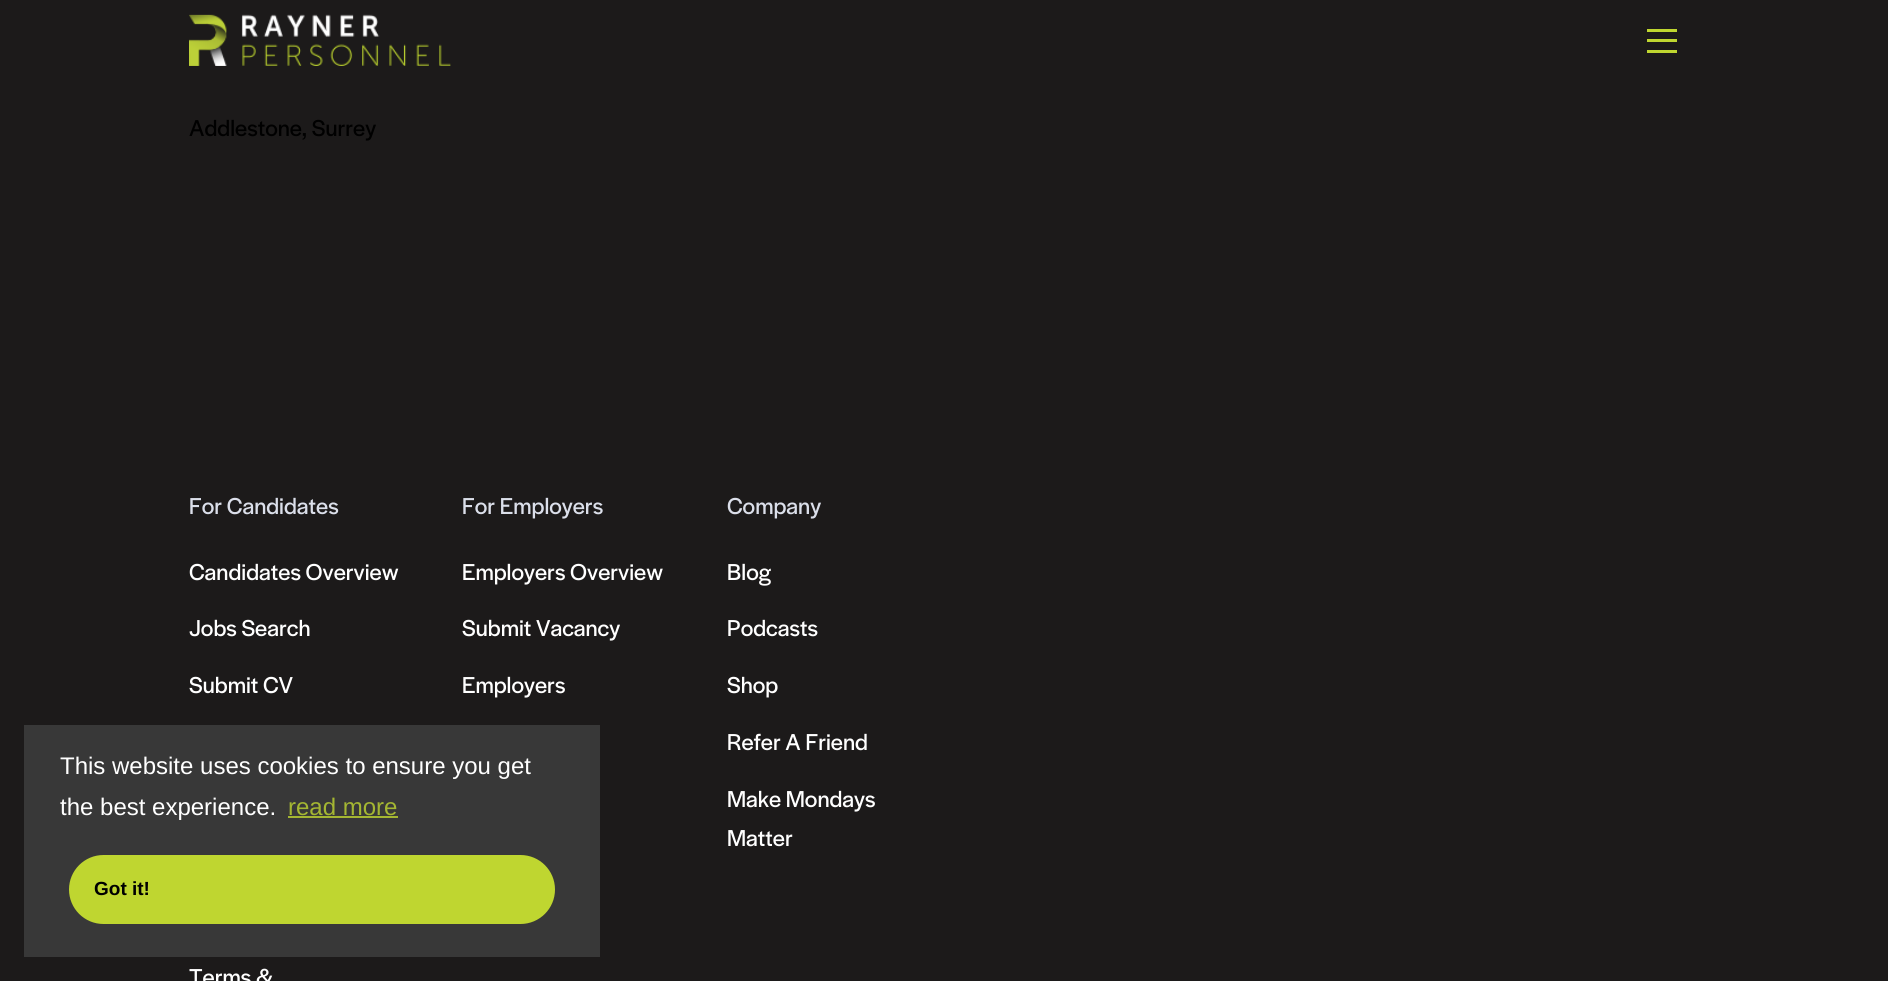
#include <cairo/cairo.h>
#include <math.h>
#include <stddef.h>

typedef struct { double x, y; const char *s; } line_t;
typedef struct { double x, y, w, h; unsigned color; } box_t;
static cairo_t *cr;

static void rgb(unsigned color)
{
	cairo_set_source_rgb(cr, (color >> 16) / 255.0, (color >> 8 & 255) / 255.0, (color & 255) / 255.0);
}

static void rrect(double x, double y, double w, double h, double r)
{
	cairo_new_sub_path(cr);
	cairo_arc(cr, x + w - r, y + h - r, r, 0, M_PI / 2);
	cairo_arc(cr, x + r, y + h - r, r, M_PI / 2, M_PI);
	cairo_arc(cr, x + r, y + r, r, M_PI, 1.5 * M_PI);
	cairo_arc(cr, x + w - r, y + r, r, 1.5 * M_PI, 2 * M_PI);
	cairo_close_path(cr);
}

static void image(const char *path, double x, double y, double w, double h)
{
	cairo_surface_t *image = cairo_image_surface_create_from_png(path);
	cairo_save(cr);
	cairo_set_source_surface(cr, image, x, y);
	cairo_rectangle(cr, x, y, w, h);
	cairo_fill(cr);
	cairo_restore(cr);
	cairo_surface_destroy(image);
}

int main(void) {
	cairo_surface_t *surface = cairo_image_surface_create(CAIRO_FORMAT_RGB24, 1888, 981);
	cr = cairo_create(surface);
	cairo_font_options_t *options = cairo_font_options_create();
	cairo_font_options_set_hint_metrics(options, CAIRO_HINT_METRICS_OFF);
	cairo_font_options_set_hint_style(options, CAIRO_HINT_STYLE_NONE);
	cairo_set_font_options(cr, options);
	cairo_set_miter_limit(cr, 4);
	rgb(0x1c1a1a);
	cairo_paint(cr);
	image("img/1.png", 189, 14, 262, 52);
	{
		static const box_t items[] = {
			{1647, 39, 30, 3, 0xbfd630},
			{1647, 29, 30, 3, 0xbfd630},
			{1647, 50, 30, 3, 0xbfd630},
			{24, 725, 576, 232, 0x383838},
			{288, 816, 110, 2, 0xa4b632},
		};
		for (size_t i = 0; i < sizeof items / sizeof *items; i++) {
			rgb(items[i].color);
			cairo_rectangle(cr, items[i].x, items[i].y, items[i].w, items[i].h);
			cairo_fill(cr);
		}
	}
	rgb(0xbfd630);
	rrect(70, 856, 484, 67, 33.5);
	cairo_fill_preserve(cr);
	cairo_stroke(cr);
	cairo_select_font_face(cr, "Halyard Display", CAIRO_FONT_SLANT_NORMAL, CAIRO_FONT_WEIGHT_NORMAL);
	cairo_set_font_size(cr, 24);
	rgb(0x000000);
	cairo_move_to(cr, 189, 136);
	cairo_show_text(cr, "Addlestone, Surrey");
	rgb(0xdbdfea);
	cairo_move_to(cr, 189, 514);
	cairo_show_text(cr, "For Candidates");
	rgb(0xffffff);
	{
		static const line_t items[] = {
			{189, 580, "Candidates Overview"},
			{189, 636, "Jobs Search"},
			{189, 693, "Submit CV"},
		};
		for (size_t i = 0; i < sizeof items / sizeof *items; i++) {
			cairo_move_to(cr, items[i].x, items[i].y);
			cairo_show_text(cr, items[i].s);
		}
	}
	rgb(0xdbdfea);
	cairo_move_to(cr, 462, 514);
	cairo_show_text(cr, "For Employers");
	rgb(0xffffff);
	{
		static const line_t items[] = {
			{462, 580, "Employers Overview"},
			{462, 636, "Submit Vacancy"},
			{462, 693, "Employers"},
		};
		for (size_t i = 0; i < sizeof items / sizeof *items; i++) {
			cairo_move_to(cr, items[i].x, items[i].y);
			cairo_show_text(cr, items[i].s);
		}
	}
	rgb(0xdbdfea);
	cairo_move_to(cr, 727, 514);
	cairo_show_text(cr, "Company");
	rgb(0xffffff);
	{
		static const line_t items[] = {
			{727, 580, "Blog"},
			{727, 636, "Podcasts"},
			{727, 693, "Shop"},
			{727, 750, "Refer A Friend"},
			{727, 807, "Make Mondays"},
			{727, 846, "Matter"},
			{189, 985, "Terms &"},
		};
		for (size_t i = 0; i < sizeof items / sizeof *items; i++) {
			cairo_move_to(cr, items[i].x, items[i].y);
			cairo_show_text(cr, items[i].s);
		}
	}
	cairo_select_font_face(cr, "Liberation Sans", CAIRO_FONT_SLANT_NORMAL, CAIRO_FONT_WEIGHT_NORMAL);
	cairo_move_to(cr, 60, 774);
	cairo_show_text(cr, "This website uses cookies to ensure you get");
	cairo_move_to(cr, 60, 815);
	cairo_show_text(cr, "the best experience.");
	rgb(0xa4b632);
	cairo_move_to(cr, 288, 815);
	cairo_show_text(cr, "read more");
	cairo_select_font_face(cr, "Liberation Sans", CAIRO_FONT_SLANT_NORMAL, CAIRO_FONT_WEIGHT_BOLD);
	cairo_set_font_size(cr, 19);
	rgb(0x000000);
	cairo_move_to(cr, 94, 895);
	cairo_show_text(cr, "Got it!");
	cairo_surface_write_to_png(surface, "page.png");
	cairo_font_options_destroy(options);
	cairo_destroy(cr);
	cairo_surface_destroy(surface);
	return 0;
}
